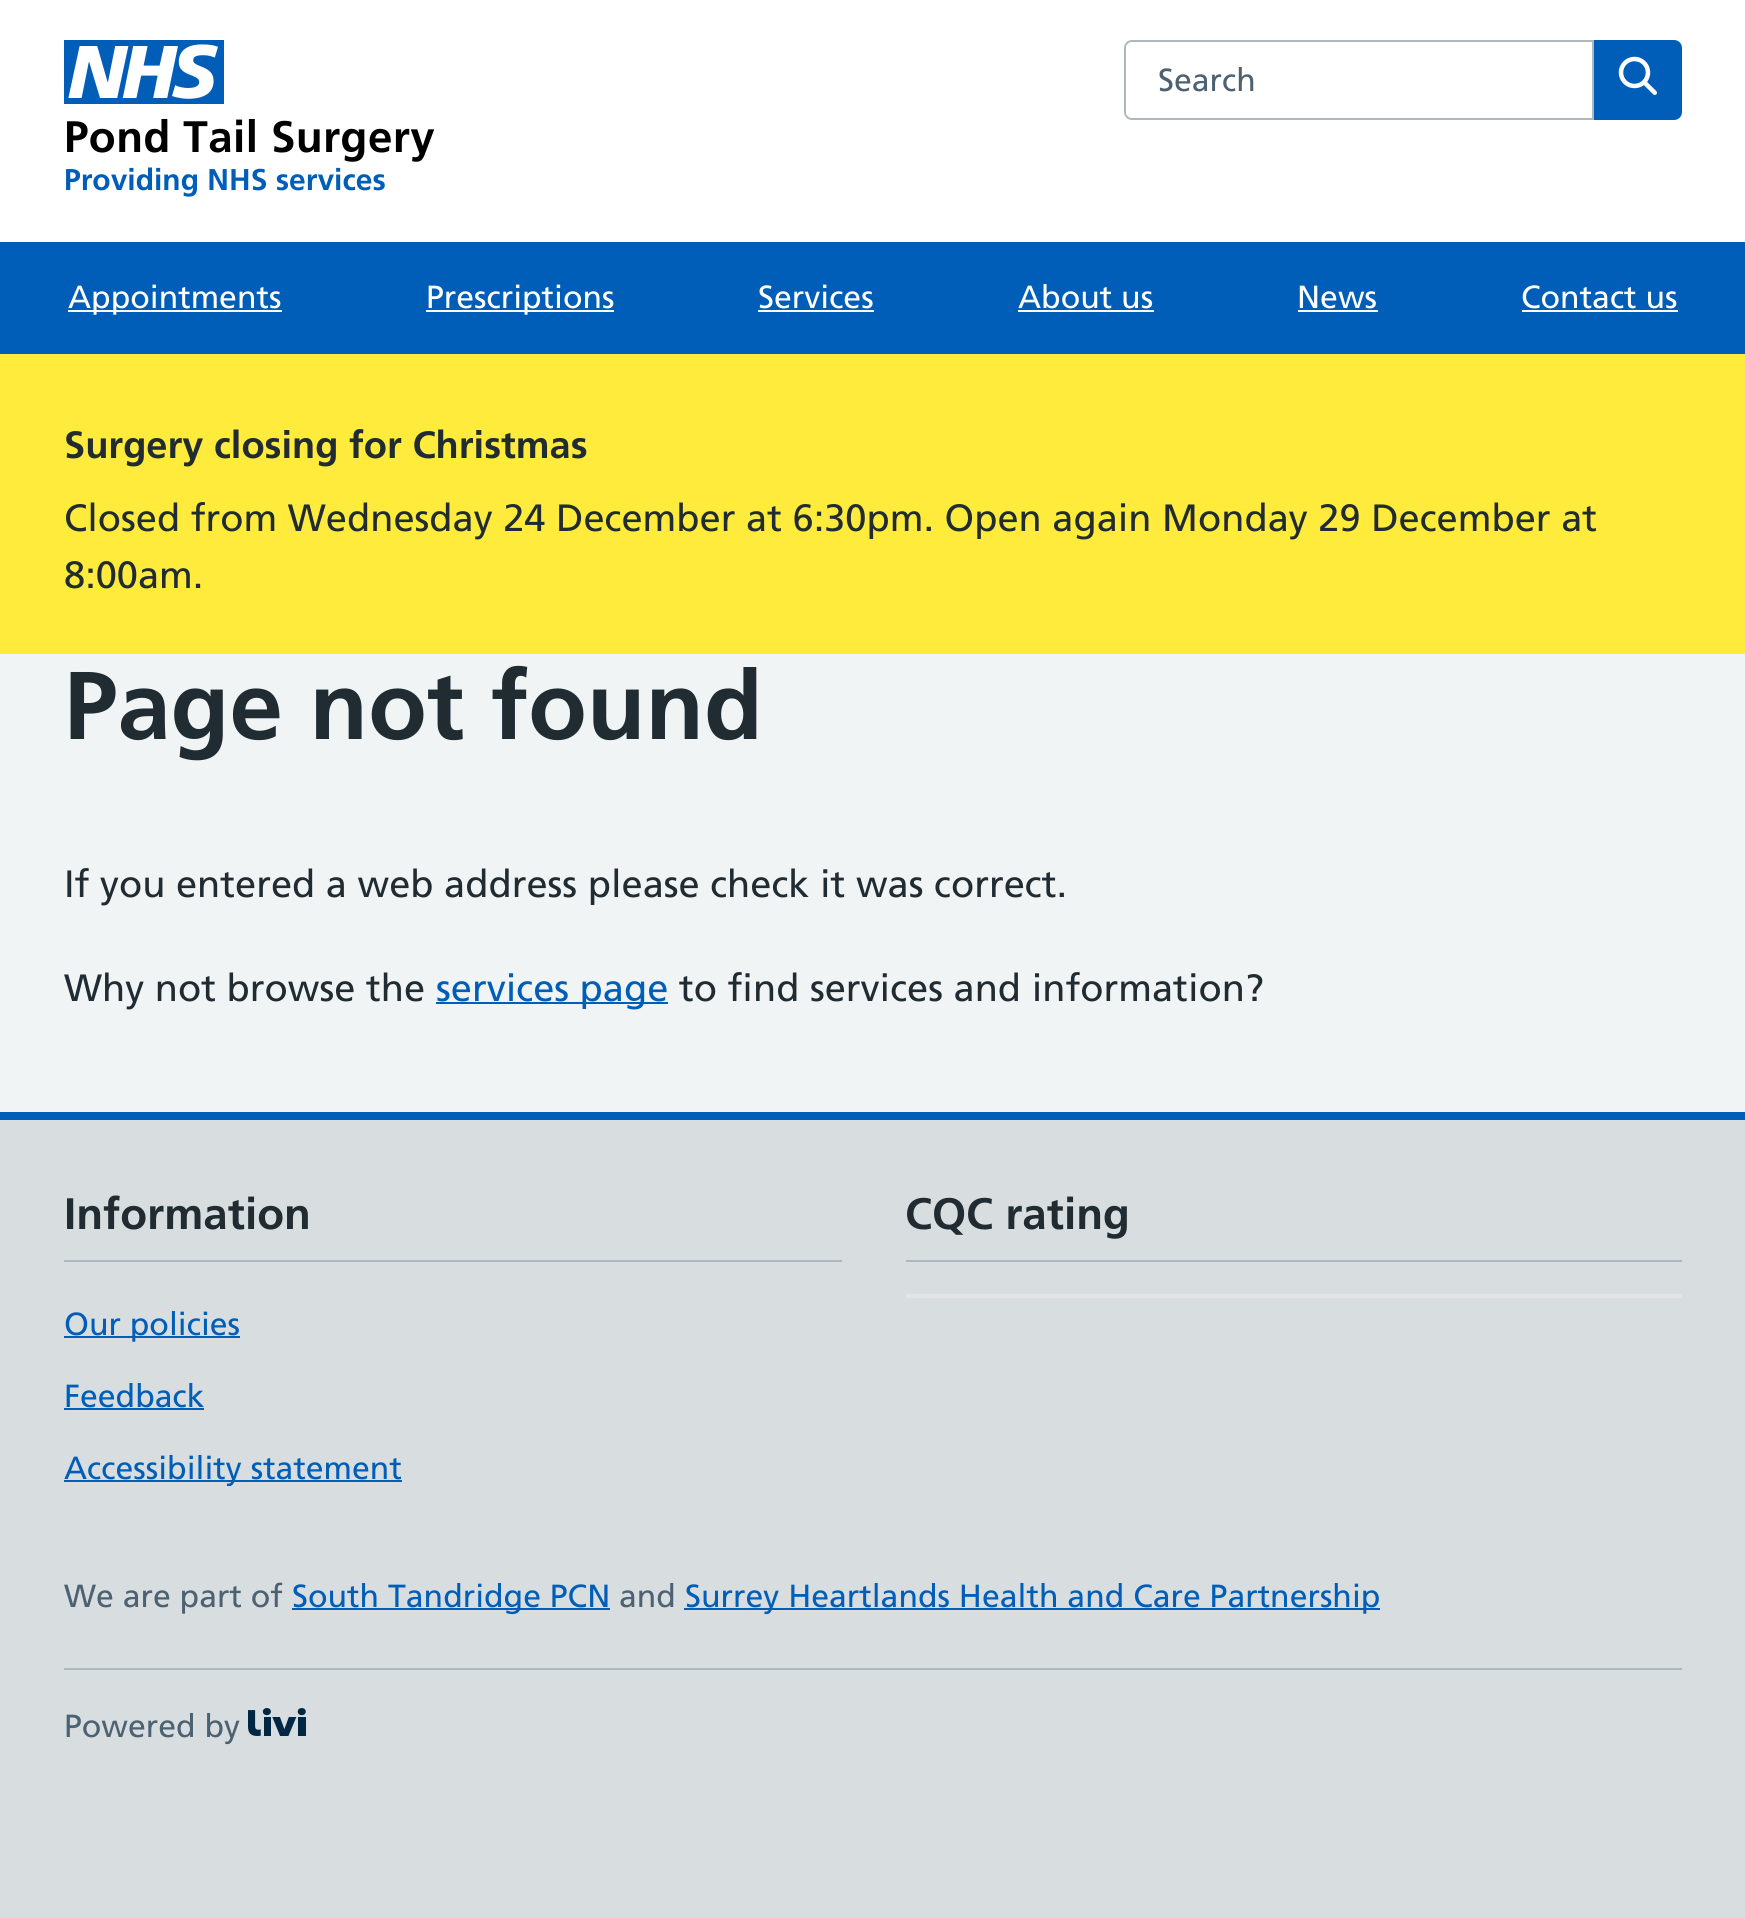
#include <cairo/cairo.h>
#include <math.h>
#include <stddef.h>

typedef struct { double x, y; const char *s; } line_t;
typedef struct { double x, y, w, h; unsigned color; } box_t;
static cairo_t *cr;

static void rgb(unsigned color)
{
	cairo_set_source_rgb(cr, (color >> 16) / 255.0, (color >> 8 & 255) / 255.0, (color & 255) / 255.0);
}

static void tracked(double x, double y, const char *s, double letter, double word)
{
	cairo_move_to(cr, x, y);
	while (*s) {
		char ch[5] = {0};
		int n = 0;
		do ch[n++] = *s++; while ((*s & 0xC0) == 0x80);
		cairo_show_text(cr, ch);
		cairo_rel_move_to(cr, letter + word * (*ch == ' '), 0);
	}
}

static void image(const char *path, double x, double y, double w, double h)
{
	cairo_surface_t *image = cairo_image_surface_create_from_png(path);
	cairo_save(cr);
	cairo_set_source_surface(cr, image, x, y);
	cairo_rectangle(cr, x, y, w, h);
	cairo_fill(cr);
	cairo_restore(cr);
	cairo_surface_destroy(image);
}

int main(void) {
	cairo_surface_t *surface = cairo_image_surface_create(CAIRO_FORMAT_RGB24, 1745, 1918);
	cr = cairo_create(surface);
	cairo_font_options_t *options = cairo_font_options_create();
	cairo_font_options_set_hint_metrics(options, CAIRO_HINT_METRICS_OFF);
	cairo_font_options_set_hint_style(options, CAIRO_HINT_STYLE_NONE);
	cairo_set_font_options(cr, options);
	cairo_set_miter_limit(cr, 4);
	rgb(0xd8dde0);
	cairo_paint(cr);
	rgb(0xf0f4f5);
	cairo_rectangle(cr, 0, 654, 1745, 458);
	cairo_fill(cr);
	rgb(0xffffff);
	cairo_rectangle(cr, 0, 0, 1745, 242);
	cairo_fill(cr);
	cairo_new_path(cr);
	cairo_move_to(cr, 1132, 41);
	cairo_line_to(cr, 1593, 41);
	cairo_line_to(cr, 1593, 119);
	cairo_line_to(cr, 1132, 119);
	cairo_curve_to(cr, 1128, 119, 1125, 116, 1125, 112);
	cairo_line_to(cr, 1125, 48);
	cairo_curve_to(cr, 1125, 44, 1128, 41, 1132, 41);
	cairo_close_path(cr);
	rgb(0xaeb7bd);
	cairo_stroke(cr);
	rgb(0x005eb8);
	cairo_new_path(cr);
	cairo_move_to(cr, 1594, 40);
	cairo_line_to(cr, 1674, 40);
	cairo_curve_to(cr, 1678.5, 40, 1682, 43.5, 1682, 48);
	cairo_line_to(cr, 1682, 112);
	cairo_curve_to(cr, 1682, 116.5, 1678.5, 120, 1674, 120);
	cairo_line_to(cr, 1594, 120);
	cairo_close_path(cr);
	cairo_fill(cr);
	image("img/1.png", 1618, 56, 39, 39);
	image("img/2.png", 64, 40, 160, 64);
	{
		static const box_t items[] = {
			{0, 242, 1745, 112, 0x005eb8},
			{68, 310, 214, 2, 0xffffff},
			{426, 310, 188, 2, 0xffffff},
			{758, 310, 116, 2, 0xffffff},
			{1018, 310, 136, 2, 0xffffff},
			{1298, 310, 80, 2, 0xffffff},
			{1522, 310, 156, 2, 0xffffff},
			{0, 354, 1745, 300, 0xffeb3b},
			{436, 1002, 232, 2, 0x005eb8},
			{0, 1112, 1745, 8, 0x005eb8},
			{64, 1260, 778, 2, 0xaeb7bd},
			{64, 1336, 176, 2, 0x005eb8},
			{64, 1408, 140, 2, 0x005eb8},
			{64, 1480, 338, 2, 0x005eb8},
			{906, 1260, 776, 2, 0xaeb7bd},
			{906, 1294, 776, 4, 0xe4e4e4},
			{292, 1608, 318, 2, 0x005eb8},
			{684, 1608, 696, 2, 0x005eb8},
			{64, 1668, 1618, 2, 0xaeb7bd},
		};
		for (size_t i = 0; i < sizeof items / sizeof *items; i++) {
			rgb(items[i].color);
			cairo_rectangle(cr, items[i].x, items[i].y, items[i].w, items[i].h);
			cairo_fill(cr);
		}
	}
	image("img/3.png", 248, 1708, 58, 28);
	cairo_select_font_face(cr, "Frutiger", CAIRO_FONT_SLANT_NORMAL, CAIRO_FONT_WEIGHT_NORMAL);
	cairo_set_font_size(cr, 32);
	rgb(0x4c6272);
	cairo_move_to(cr, 1158, 91);
	cairo_show_text(cr, "Search");
	cairo_select_font_face(cr, "Frutiger", CAIRO_FONT_SLANT_NORMAL, CAIRO_FONT_WEIGHT_BOLD);
	cairo_set_font_size(cr, 44);
	rgb(0x000000);
	tracked(64, 152, "Pond Tail Surgery", 0.4, 0);
	cairo_set_font_size(cr, 30);
	rgb(0x005eb8);
	cairo_move_to(cr, 64, 190);
	cairo_show_text(cr, "Providing NHS services");
	cairo_select_font_face(cr, "Frutiger", CAIRO_FONT_SLANT_NORMAL, CAIRO_FONT_WEIGHT_NORMAL);
	cairo_set_font_size(cr, 32);
	rgb(0xffffff);
	{
		static const line_t items[] = {
			{68, 308, "Appointments"},
			{426, 308, "Prescriptions"},
			{758, 308, "Services"},
			{1018, 308, "About us"},
			{1297, 308, "News"},
			{1521, 308, "Contact us"},
		};
		for (size_t i = 0; i < sizeof items / sizeof *items; i++) {
			cairo_move_to(cr, items[i].x, items[i].y);
			cairo_show_text(cr, items[i].s);
		}
	}
	cairo_select_font_face(cr, "Frutiger", CAIRO_FONT_SLANT_NORMAL, CAIRO_FONT_WEIGHT_BOLD);
	cairo_set_font_size(cr, 38);
	rgb(0x212b32);
	cairo_move_to(cr, 64, 458);
	cairo_show_text(cr, "Surgery closing for Christmas");
	cairo_select_font_face(cr, "Frutiger", CAIRO_FONT_SLANT_NORMAL, CAIRO_FONT_WEIGHT_NORMAL);
	cairo_move_to(cr, 64, 531);
	cairo_show_text(cr, "Closed from Wednesday 24 December at 6:30pm. Open again Monday 29 December at");
	cairo_move_to(cr, 64, 588);
	cairo_show_text(cr, "8:00am.");
	cairo_select_font_face(cr, "Frutiger", CAIRO_FONT_SLANT_NORMAL, CAIRO_FONT_WEIGHT_BOLD);
	cairo_set_font_size(cr, 96);
	cairo_move_to(cr, 64, 739);
	cairo_show_text(cr, "Page not found");
	cairo_select_font_face(cr, "Frutiger", CAIRO_FONT_SLANT_NORMAL, CAIRO_FONT_WEIGHT_NORMAL);
	cairo_set_font_size(cr, 38);
	cairo_move_to(cr, 64, 897);
	cairo_show_text(cr, "If you entered a web address please check it was correct.");
	cairo_move_to(cr, 64, 1001);
	cairo_show_text(cr, "Why not browse the");
	rgb(0x005eb8);
	cairo_move_to(cr, 436, 1001);
	cairo_show_text(cr, "services page");
	rgb(0x212b32);
	cairo_move_to(cr, 679, 1001);
	cairo_show_text(cr, "to find services and information?");
	cairo_select_font_face(cr, "Frutiger", CAIRO_FONT_SLANT_NORMAL, CAIRO_FONT_WEIGHT_BOLD);
	cairo_set_font_size(cr, 44);
	cairo_move_to(cr, 64, 1229);
	cairo_show_text(cr, "Information");
	cairo_select_font_face(cr, "Frutiger", CAIRO_FONT_SLANT_NORMAL, CAIRO_FONT_WEIGHT_NORMAL);
	cairo_set_font_size(cr, 32);
	rgb(0x005eb8);
	{
		static const line_t items[] = {
			{64, 1335, "Our policies"},
			{64, 1407, "Feedback"},
			{64, 1479, "Accessibility statement"},
		};
		for (size_t i = 0; i < sizeof items / sizeof *items; i++) {
			cairo_move_to(cr, items[i].x, items[i].y);
			cairo_show_text(cr, items[i].s);
		}
	}
	cairo_select_font_face(cr, "Frutiger", CAIRO_FONT_SLANT_NORMAL, CAIRO_FONT_WEIGHT_BOLD);
	cairo_set_font_size(cr, 44);
	rgb(0x212b32);
	cairo_move_to(cr, 905, 1229);
	cairo_show_text(cr, "CQC rating");
	cairo_select_font_face(cr, "Frutiger", CAIRO_FONT_SLANT_NORMAL, CAIRO_FONT_WEIGHT_NORMAL);
	cairo_set_font_size(cr, 32);
	rgb(0x4c6272);
	cairo_move_to(cr, 64, 1607);
	cairo_show_text(cr, "We are part of");
	rgb(0x005eb8);
	cairo_move_to(cr, 292, 1607);
	cairo_show_text(cr, "South Tandridge PCN");
	rgb(0x4c6272);
	cairo_move_to(cr, 619, 1607);
	cairo_show_text(cr, "and");
	rgb(0x005eb8);
	cairo_move_to(cr, 685, 1607);
	cairo_show_text(cr, "Surrey Heartlands Health and Care Partnership");
	rgb(0x4c6272);
	cairo_move_to(cr, 64, 1737);
	cairo_show_text(cr, "Powered by");
	cairo_surface_write_to_png(surface, "page.png");
	cairo_font_options_destroy(options);
	cairo_destroy(cr);
	cairo_surface_destroy(surface);
	return 0;
}
